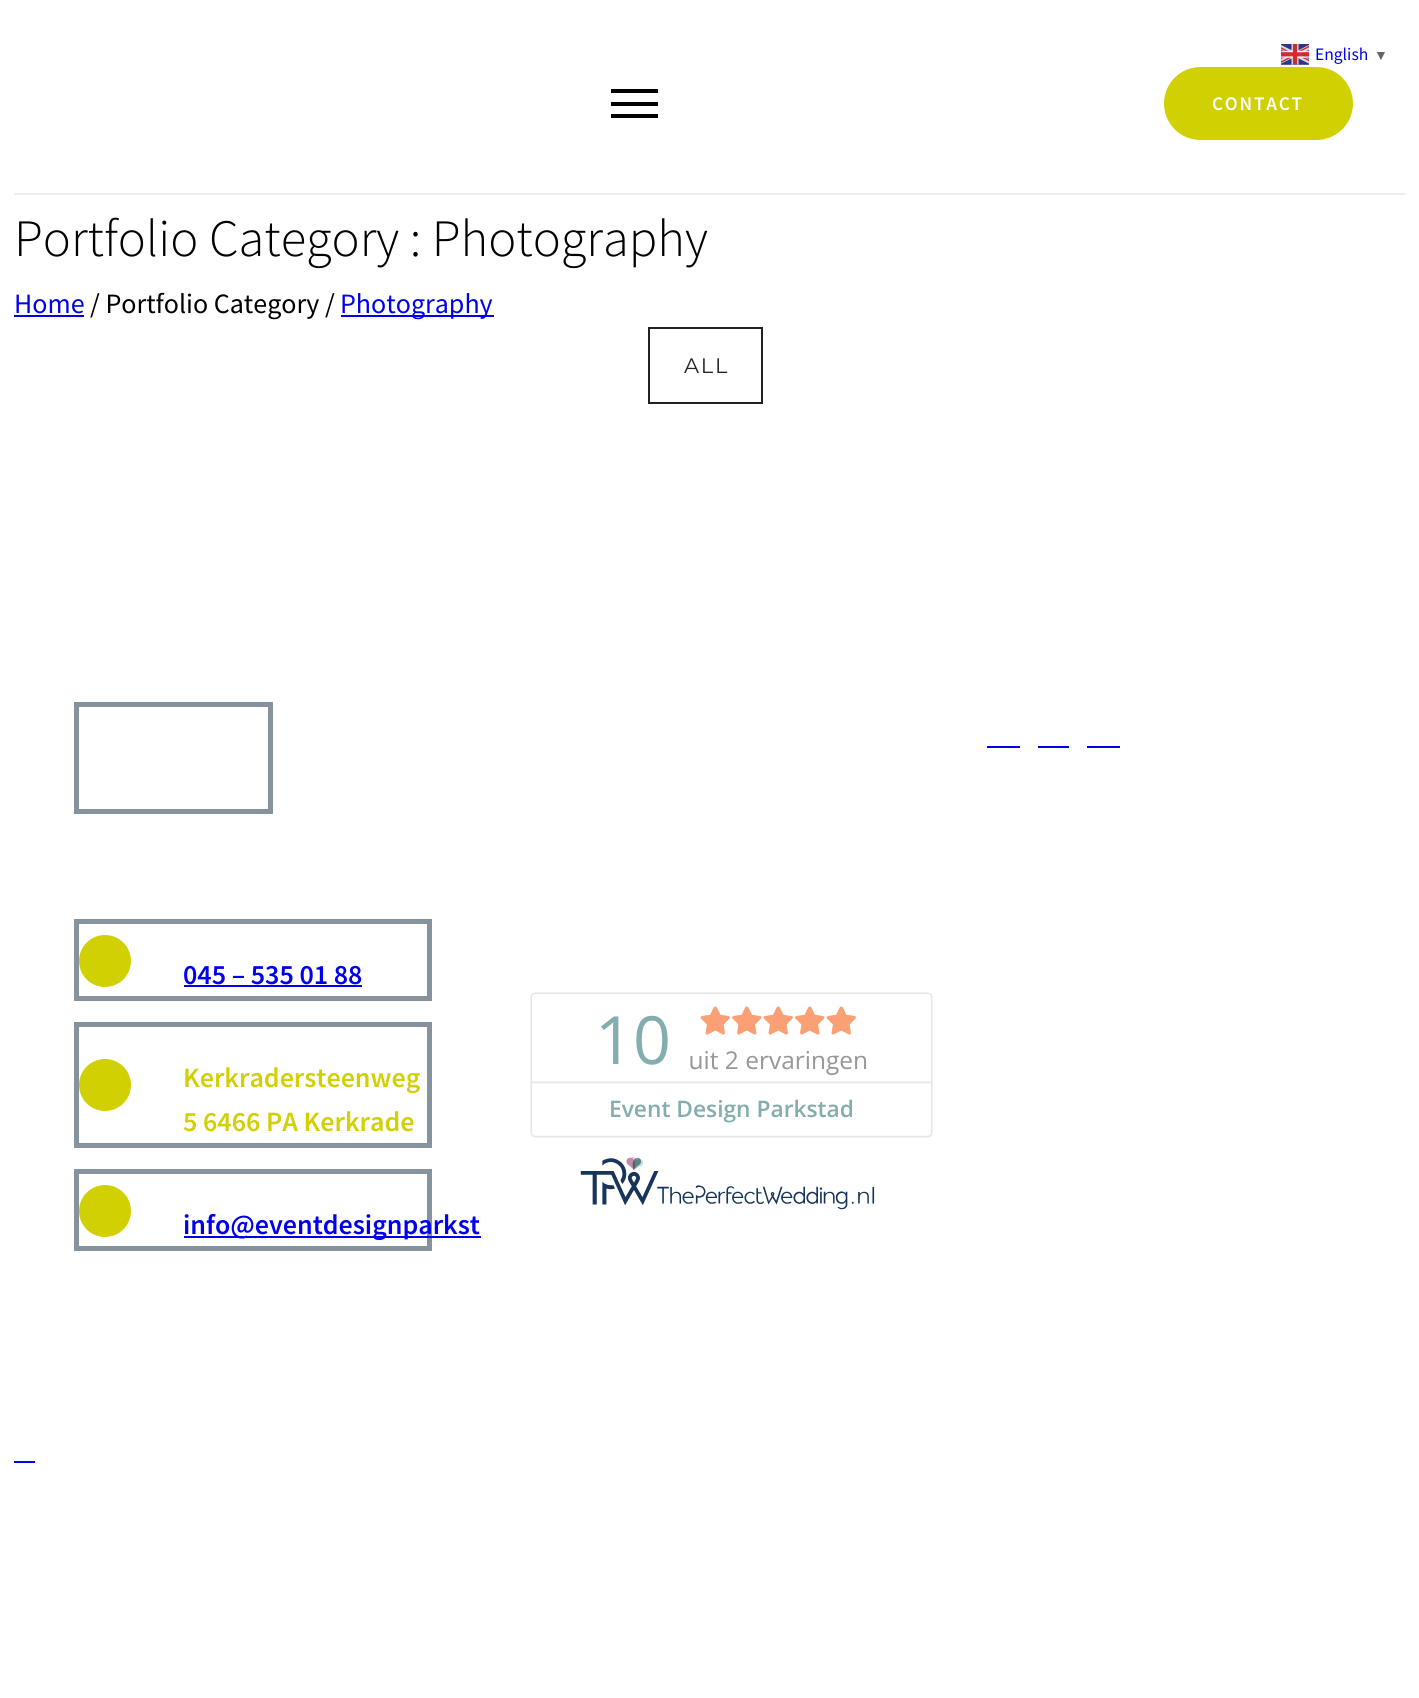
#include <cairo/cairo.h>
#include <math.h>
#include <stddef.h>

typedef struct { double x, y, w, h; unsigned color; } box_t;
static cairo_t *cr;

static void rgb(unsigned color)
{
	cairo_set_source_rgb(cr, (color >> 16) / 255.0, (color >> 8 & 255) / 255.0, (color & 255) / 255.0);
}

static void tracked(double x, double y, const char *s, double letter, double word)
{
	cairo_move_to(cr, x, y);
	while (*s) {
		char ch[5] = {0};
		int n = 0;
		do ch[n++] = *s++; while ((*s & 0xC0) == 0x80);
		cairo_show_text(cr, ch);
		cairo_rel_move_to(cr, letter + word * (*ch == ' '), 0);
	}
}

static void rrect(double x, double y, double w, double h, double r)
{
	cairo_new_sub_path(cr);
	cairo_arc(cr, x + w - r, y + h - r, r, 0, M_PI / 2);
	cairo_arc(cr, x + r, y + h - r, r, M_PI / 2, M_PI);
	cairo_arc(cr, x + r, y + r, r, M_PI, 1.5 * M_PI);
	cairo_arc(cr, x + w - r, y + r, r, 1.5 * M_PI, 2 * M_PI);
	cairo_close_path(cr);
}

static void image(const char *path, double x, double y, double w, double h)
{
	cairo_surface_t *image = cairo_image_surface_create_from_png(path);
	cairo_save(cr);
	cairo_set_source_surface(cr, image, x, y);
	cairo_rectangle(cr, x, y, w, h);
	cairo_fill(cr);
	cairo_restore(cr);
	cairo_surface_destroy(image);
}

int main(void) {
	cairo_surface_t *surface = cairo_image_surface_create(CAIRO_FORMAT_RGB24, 1419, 1698);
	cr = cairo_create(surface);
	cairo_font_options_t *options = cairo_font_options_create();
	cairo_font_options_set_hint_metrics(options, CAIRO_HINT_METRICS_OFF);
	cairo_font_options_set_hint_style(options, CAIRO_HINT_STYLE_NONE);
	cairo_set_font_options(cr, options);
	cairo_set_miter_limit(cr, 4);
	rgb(0xffffff);
	cairo_paint(cr);
	image("img/1.png", 1281, 44, 28, 21);
	{
		static const box_t items[] = {
			{14, 193, 1391, 2, 0xededed},
			{611, 89, 47, 4, 0x000000},
			{611, 102, 47, 4, 0x000000},
			{611, 114, 47, 4, 0x000000},
		};
		for (size_t i = 0; i < sizeof items / sizeof *items; i++) {
			rgb(items[i].color);
			cairo_rectangle(cr, items[i].x, items[i].y, items[i].w, items[i].h);
			cairo_fill(cr);
		}
	}
	rgb(0xd1d003);
	rrect(1164, 67, 189, 73, 36.5);
	cairo_fill(cr);
	rgb(0x0000ee);
	cairo_rectangle(cr, 14, 315, 70, 2);
	cairo_fill(cr);
	cairo_rectangle(cr, 341, 315, 153, 2);
	cairo_fill(cr);
	cairo_rectangle(cr, 649, 328, 113, 75);
	rgb(0x222222);
	cairo_stroke(cr);
	{
		static const box_t items[] = {
			{987, 746, 33, 2, 0x0000ee},
			{1038, 746, 31, 2, 0x0000ee},
			{1087, 746, 33, 2, 0x0000ee},
		};
		for (size_t i = 0; i < sizeof items / sizeof *items; i++) {
			rgb(items[i].color);
			cairo_rectangle(cr, items[i].x, items[i].y, items[i].w, items[i].h);
			cairo_fill(cr);
		}
	}
	cairo_rectangle(cr, 76.5, 704.5, 194, 107);
	rgb(0x86939e);
	cairo_set_line_width(cr, 5);
	cairo_stroke(cr);
	cairo_rectangle(cr, 76.5, 921.5, 353, 77);
	cairo_stroke(cr);
	rgb(0xd1d003);
	cairo_arc(cr, 105, 961, 26, 0, 2 * M_PI);
	cairo_fill(cr);
	rgb(0x0000ee);
	cairo_rectangle(cr, 184, 985, 178, 2);
	cairo_fill(cr);
	cairo_rectangle(cr, 76.5, 1024.5, 353, 121);
	rgb(0x86939e);
	cairo_stroke(cr);
	rgb(0xd1d003);
	cairo_arc(cr, 105, 1085, 26, 0, 2 * M_PI);
	cairo_fill(cr);
	cairo_rectangle(cr, 76.5, 1171.5, 353, 77);
	rgb(0x86939e);
	cairo_stroke(cr);
	rgb(0xd1d003);
	cairo_arc(cr, 105, 1211, 26, 0, 2 * M_PI);
	cairo_fill(cr);
	rgb(0x0000ee);
	cairo_rectangle(cr, 184, 1236, 297, 2);
	cairo_fill(cr);
	image("img/2.png", 530, 992, 403, 218);
	cairo_rectangle(cr, 14, 1461, 21, 2);
	cairo_fill(cr);
	cairo_select_font_face(cr, "Source Sans Pro", CAIRO_FONT_SLANT_NORMAL, CAIRO_FONT_WEIGHT_NORMAL);
	cairo_set_font_size(cr, 17.5);
	cairo_move_to(cr, 1315, 60);
	cairo_show_text(cr, "English");
	cairo_select_font_face(cr, "Liberation Sans", CAIRO_FONT_SLANT_NORMAL, CAIRO_FONT_WEIGHT_BOLD);
	cairo_set_font_size(cr, 14);
	rgb(0x666666);
	cairo_move_to(cr, 1374, 60);
	cairo_show_text(cr, "▼");
	cairo_select_font_face(cr, "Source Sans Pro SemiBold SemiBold", CAIRO_FONT_SLANT_NORMAL, CAIRO_FONT_WEIGHT_NORMAL);
	cairo_set_font_size(cr, 19.25);
	rgb(0xffffff);
	tracked(1212, 110, "CONTACT", 1.75, 0);
	cairo_select_font_face(cr, "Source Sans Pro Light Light", CAIRO_FONT_SLANT_NORMAL, CAIRO_FONT_WEIGHT_NORMAL);
	cairo_set_font_size(cr, 52.5);
	rgb(0x000000);
	cairo_move_to(cr, 14, 256);
	cairo_show_text(cr, "Portfolio Category : Photography");
	cairo_select_font_face(cr, "Source Sans Pro", CAIRO_FONT_SLANT_NORMAL, CAIRO_FONT_WEIGHT_NORMAL);
	cairo_set_font_size(cr, 28);
	rgb(0x0000ee);
	cairo_move_to(cr, 14, 313);
	cairo_show_text(cr, "Home");
	rgb(0x000000);
	cairo_move_to(cr, 90, 313);
	cairo_show_text(cr, "/ Portfolio Category /");
	rgb(0x0000ee);
	cairo_move_to(cr, 340, 313);
	cairo_show_text(cr, "Photography");
	cairo_select_font_face(cr, "Montserrat", CAIRO_FONT_SLANT_NORMAL, CAIRO_FONT_WEIGHT_NORMAL);
	cairo_set_font_size(cr, 21);
	rgb(0x222222);
	tracked(684, 373, "ALL", 1.75, 0);
	cairo_select_font_face(cr, "Source Sans Pro SemiBold SemiBold", CAIRO_FONT_SLANT_NORMAL, CAIRO_FONT_WEIGHT_NORMAL);
	cairo_set_font_size(cr, 28);
	rgb(0x0000ee);
	cairo_move_to(cr, 183, 984);
	cairo_show_text(cr, "045 – 535 01 88");
	rgb(0xd1d003);
	cairo_move_to(cr, 183, 1087);
	cairo_show_text(cr, "Kerkradersteenweg");
	cairo_move_to(cr, 183, 1131);
	cairo_show_text(cr, "5 6466 PA Kerkrade");
	rgb(0x0000ee);
	cairo_move_to(cr, 183, 1234);
	cairo_show_text(cr, "info@eventdesignparkst");
	cairo_surface_write_to_png(surface, "page.png");
	cairo_font_options_destroy(options);
	cairo_destroy(cr);
	cairo_surface_destroy(surface);
	return 0;
}
